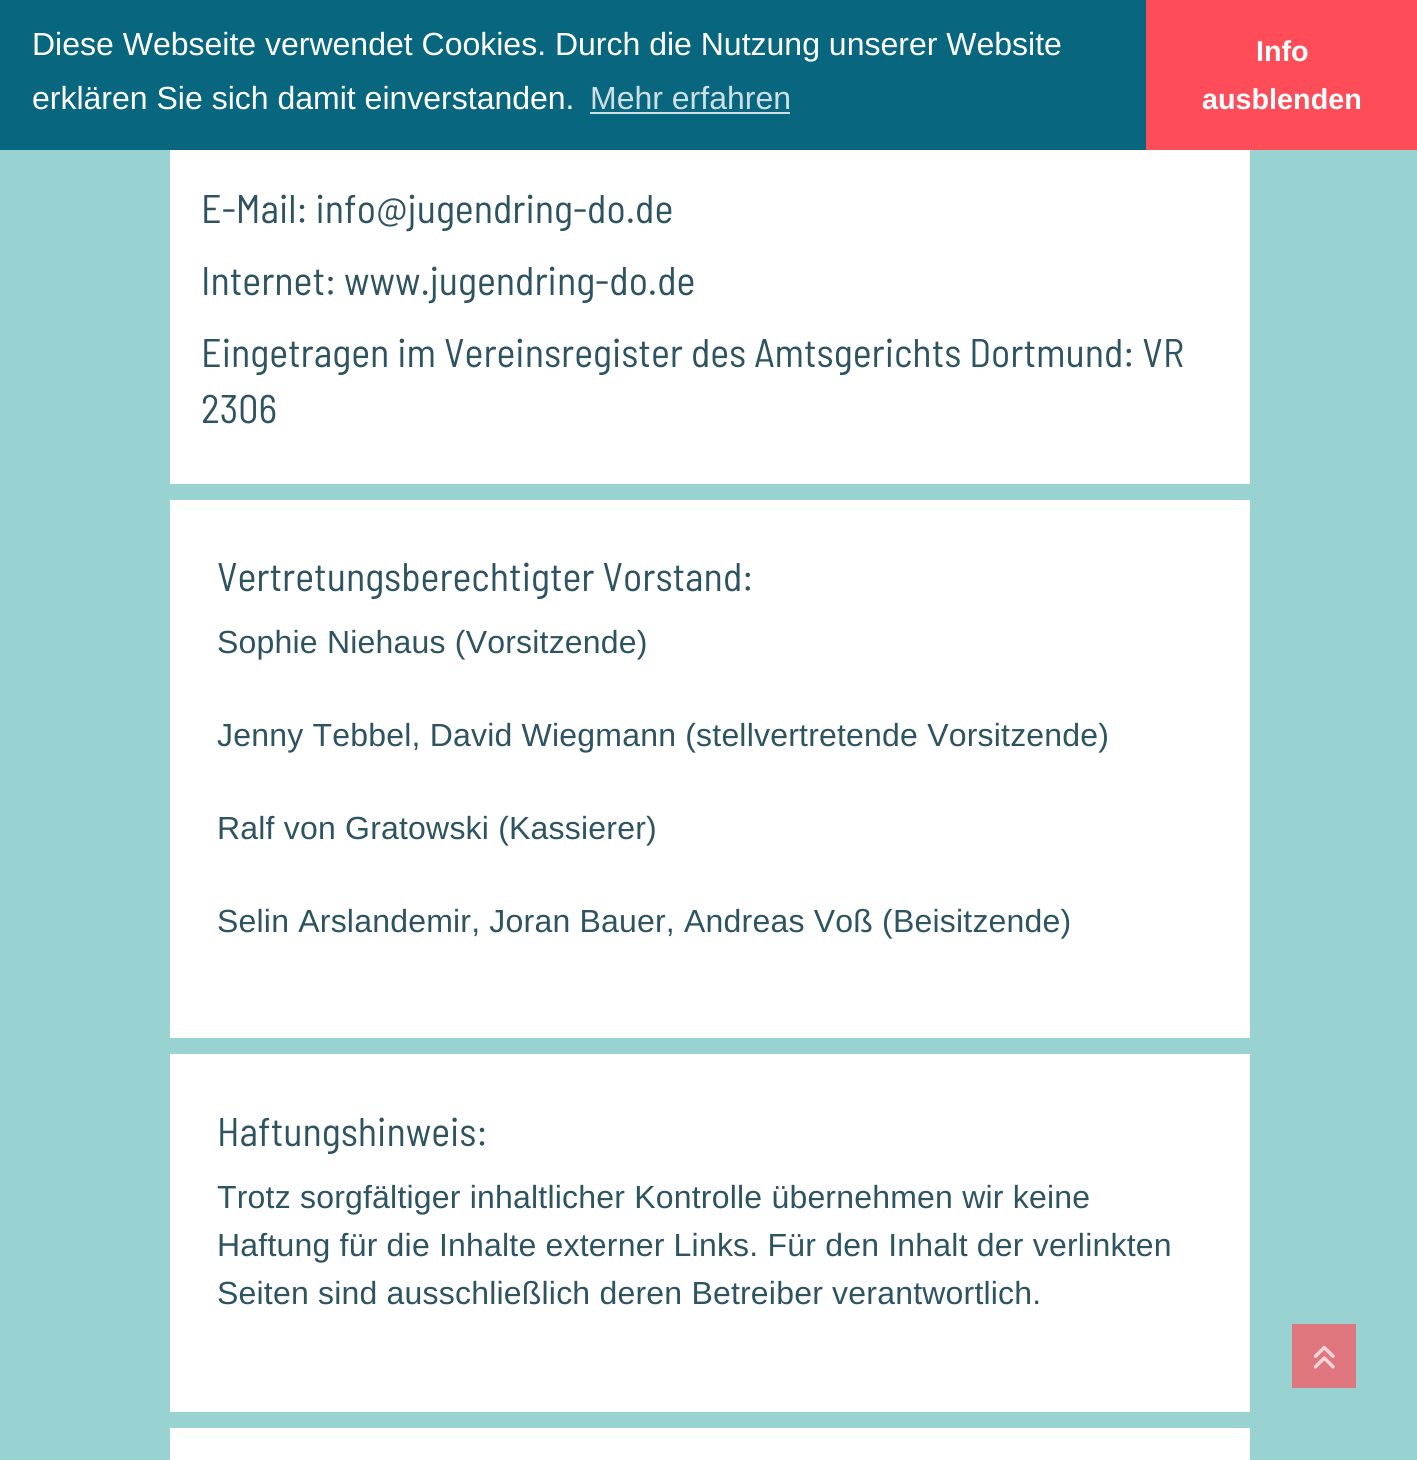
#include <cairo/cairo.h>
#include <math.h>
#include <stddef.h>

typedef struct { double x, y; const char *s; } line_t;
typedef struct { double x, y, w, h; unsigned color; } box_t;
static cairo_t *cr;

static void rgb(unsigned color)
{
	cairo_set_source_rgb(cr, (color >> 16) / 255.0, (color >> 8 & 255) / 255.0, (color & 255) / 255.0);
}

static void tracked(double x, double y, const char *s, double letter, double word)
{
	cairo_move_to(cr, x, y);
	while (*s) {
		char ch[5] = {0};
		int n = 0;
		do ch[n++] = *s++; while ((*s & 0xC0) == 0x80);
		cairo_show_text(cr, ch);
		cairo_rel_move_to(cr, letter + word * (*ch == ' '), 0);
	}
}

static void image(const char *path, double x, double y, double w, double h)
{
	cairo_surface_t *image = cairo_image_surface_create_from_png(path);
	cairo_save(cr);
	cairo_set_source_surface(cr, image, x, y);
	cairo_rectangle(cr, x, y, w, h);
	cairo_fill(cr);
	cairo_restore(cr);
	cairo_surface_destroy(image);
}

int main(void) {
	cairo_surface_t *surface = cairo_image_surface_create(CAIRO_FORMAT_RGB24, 1417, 1460);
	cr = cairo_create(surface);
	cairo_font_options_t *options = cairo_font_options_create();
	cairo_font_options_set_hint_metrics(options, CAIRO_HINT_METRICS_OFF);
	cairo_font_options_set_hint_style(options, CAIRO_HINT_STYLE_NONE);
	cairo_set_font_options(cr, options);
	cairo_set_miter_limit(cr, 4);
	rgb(0x98d3d2);
	cairo_paint(cr);
	{
		static const box_t items[] = {
			{0, 0, 1146, 150, 0x08667f},
			{590, 112, 200, 2, 0xcee0e5},
			{1146, 0, 271, 150, 0xfe4c58},
			{170, 150, 1080, 334, 0xffffff},
			{170, 500, 1080, 538, 0xffffff},
			{170, 1054, 1080, 358, 0xffffff},
			{170, 1428, 1080, 32, 0xffffff},
			{1292, 1324, 64, 64, 0xdf757d},
		};
		for (size_t i = 0; i < sizeof items / sizeof *items; i++) {
			rgb(items[i].color);
			cairo_rectangle(cr, items[i].x, items[i].y, items[i].w, items[i].h);
			cairo_fill(cr);
		}
	}
	image("img/1.png", 1313, 1345, 22, 24);
	cairo_select_font_face(cr, "Liberation Sans", CAIRO_FONT_SLANT_NORMAL, CAIRO_FONT_WEIGHT_NORMAL);
	cairo_set_font_size(cr, 32);
	rgb(0xffffff);
	cairo_move_to(cr, 32, 55);
	cairo_show_text(cr, "Diese Webseite verwendet Cookies. Durch die Nutzung unserer Website");
	cairo_move_to(cr, 32, 109);
	cairo_show_text(cr, "erklären Sie sich damit einverstanden.");
	rgb(0xcee0e5);
	cairo_move_to(cr, 590, 109);
	cairo_show_text(cr, "Mehr erfahren");
	cairo_select_font_face(cr, "Liberation Sans", CAIRO_FONT_SLANT_NORMAL, CAIRO_FONT_WEIGHT_BOLD);
	cairo_set_font_size(cr, 28.75);
	rgb(0xffffff);
	cairo_move_to(cr, 1256, 61);
	cairo_show_text(cr, "Info");
	cairo_move_to(cr, 1202, 109);
	cairo_show_text(cr, "ausblenden");
	cairo_select_font_face(cr, "Barlow Semi Condensed", CAIRO_FONT_SLANT_NORMAL, CAIRO_FONT_WEIGHT_NORMAL);
	cairo_set_font_size(cr, 40);
	rgb(0x2e5461);
	{
		static const line_t items[] = {
			{201, 223, "E-Mail: info@jugendring-do.de"},
			{201, 295, "Internet: www.jugendring-do.de"},
			{201, 367, "Eingetragen im Vereinsregister des Amtsgerichts Dortmund: VR"},
			{201, 423, "2306"},
			{217, 591, "Vertretungsberechtigter Vorstand:"},
		};
		for (size_t i = 0; i < sizeof items / sizeof *items; i++) {
			cairo_move_to(cr, items[i].x, items[i].y);
			cairo_show_text(cr, items[i].s);
		}
	}
	cairo_select_font_face(cr, "Liberation Sans", CAIRO_FONT_SLANT_NORMAL, CAIRO_FONT_WEIGHT_NORMAL);
	cairo_set_font_size(cr, 32);
	{
		static const line_t items[] = {
			{217, 653, "Sophie Niehaus (Vorsitzende)"},
			{217, 746, "Jenny Tebbel, David Wiegmann (stellvertretende Vorsitzende)"},
			{217, 839, "Ralf von Gratowski (Kassierer)"},
			{217, 932, "Selin Arslandemir, Joran Bauer, Andreas Voß (Beisitzende)"},
		};
		for (size_t i = 0; i < sizeof items / sizeof *items; i++) {
			tracked(items[i].x, items[i].y, items[i].s, 0.2, 0);
		}
	}
	cairo_select_font_face(cr, "Barlow Semi Condensed", CAIRO_FONT_SLANT_NORMAL, CAIRO_FONT_WEIGHT_NORMAL);
	cairo_set_font_size(cr, 40);
	cairo_move_to(cr, 217, 1146);
	cairo_show_text(cr, "Haftungshinweis:");
	cairo_select_font_face(cr, "Liberation Sans", CAIRO_FONT_SLANT_NORMAL, CAIRO_FONT_WEIGHT_NORMAL);
	cairo_set_font_size(cr, 32);
	{
		static const line_t items[] = {
			{217, 1208, "Trotz sorgfältiger inhaltlicher Kontrolle übernehmen wir keine"},
			{217, 1256, "Haftung für die Inhalte externer Links. Für den Inhalt der verlinkten"},
			{217, 1304, "Seiten sind ausschließlich deren Betreiber verantwortlich."},
		};
		for (size_t i = 0; i < sizeof items / sizeof *items; i++) {
			tracked(items[i].x, items[i].y, items[i].s, 0.2, 0);
		}
	}
	cairo_surface_write_to_png(surface, "page.png");
	cairo_font_options_destroy(options);
	cairo_destroy(cr);
	cairo_surface_destroy(surface);
	return 0;
}
